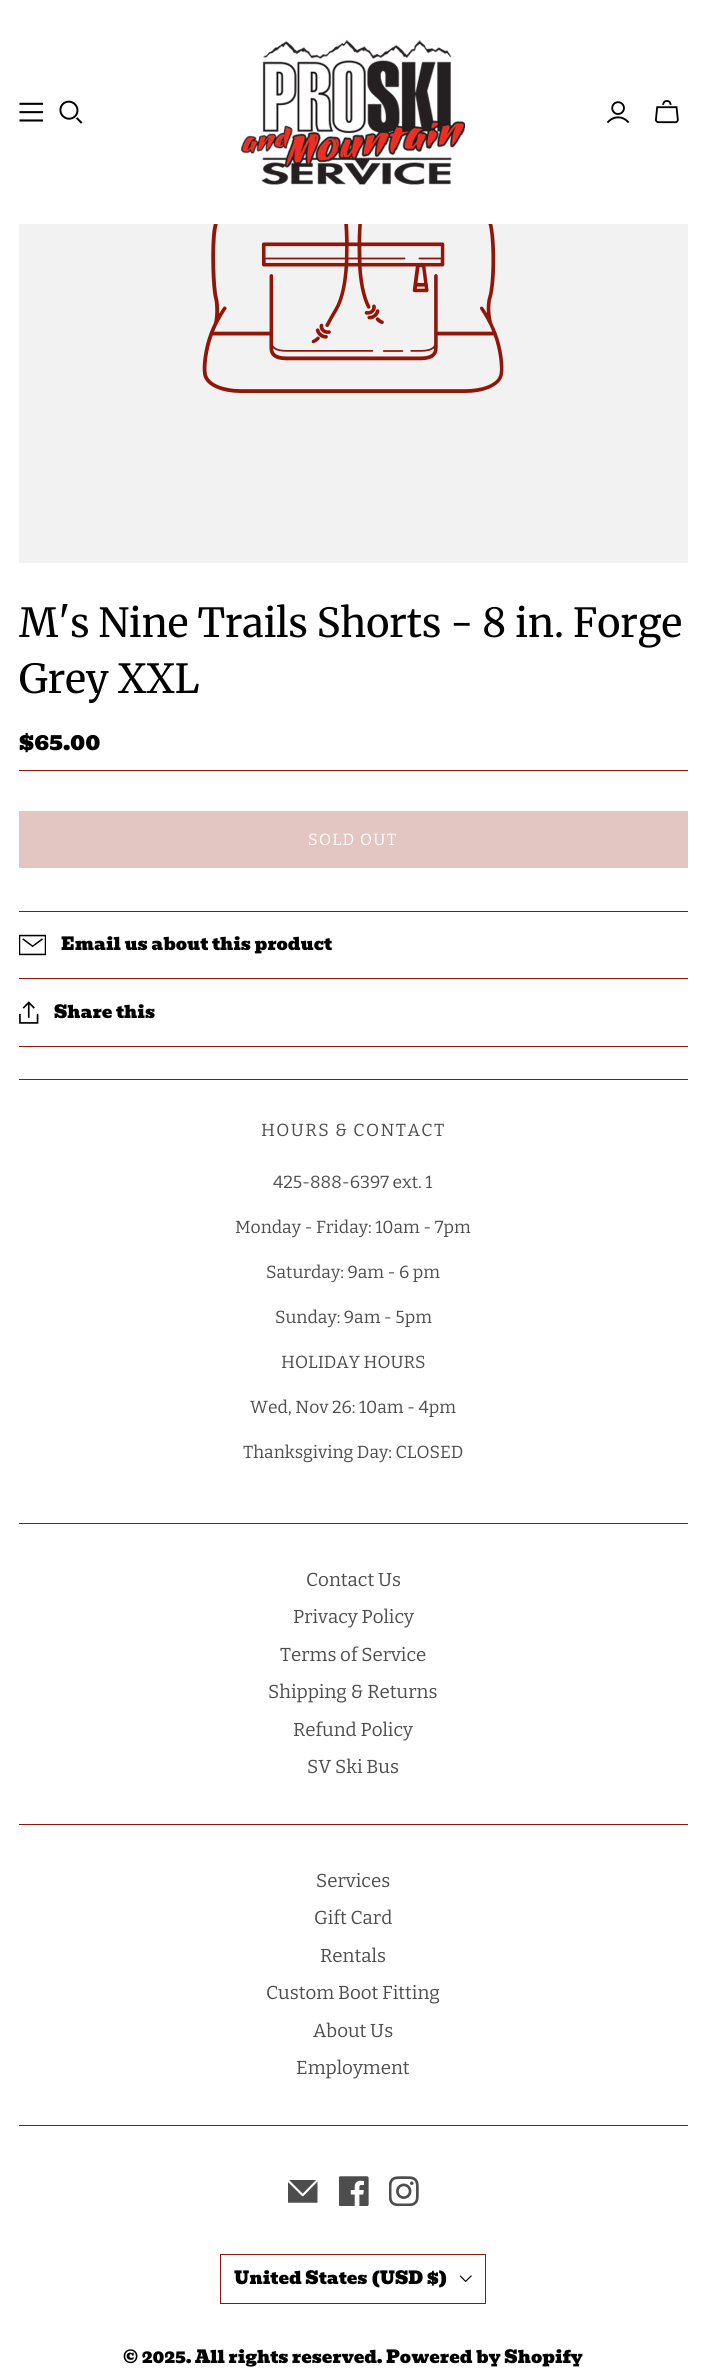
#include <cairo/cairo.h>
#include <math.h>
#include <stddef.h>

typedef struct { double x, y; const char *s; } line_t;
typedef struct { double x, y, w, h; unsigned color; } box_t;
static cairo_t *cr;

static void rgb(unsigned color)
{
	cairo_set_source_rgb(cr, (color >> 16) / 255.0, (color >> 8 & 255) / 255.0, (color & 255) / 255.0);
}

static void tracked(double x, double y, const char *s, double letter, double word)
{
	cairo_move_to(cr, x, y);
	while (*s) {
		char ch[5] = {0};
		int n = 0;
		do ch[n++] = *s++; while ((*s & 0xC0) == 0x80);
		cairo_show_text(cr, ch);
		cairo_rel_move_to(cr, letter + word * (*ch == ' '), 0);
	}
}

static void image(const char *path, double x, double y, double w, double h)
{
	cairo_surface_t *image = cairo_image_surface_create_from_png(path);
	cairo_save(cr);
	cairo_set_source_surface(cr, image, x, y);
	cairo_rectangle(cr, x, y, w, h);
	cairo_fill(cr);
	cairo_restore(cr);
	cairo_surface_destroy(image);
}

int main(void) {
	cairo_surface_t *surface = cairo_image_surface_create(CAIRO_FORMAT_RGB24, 706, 2379);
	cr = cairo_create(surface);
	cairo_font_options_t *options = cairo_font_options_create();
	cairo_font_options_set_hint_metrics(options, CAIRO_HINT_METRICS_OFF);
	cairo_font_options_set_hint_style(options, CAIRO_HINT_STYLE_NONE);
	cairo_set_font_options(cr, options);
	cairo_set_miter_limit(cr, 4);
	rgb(0xffffff);
	cairo_paint(cr);
	image("img/1.png", 241, 40, 224, 145);
	image("img/2.png", 19, 102, 25, 20);
	image("img/3.png", 59, 100, 24, 24);
	image("img/4.png", 606, 101, 24, 23);
	image("img/5.png", 655, 100, 24, 24);
	rgb(0xf2f2f2);
	cairo_rectangle(cr, 19, 224, 669, 339);
	cairo_fill(cr);
	image("img/6.png", 202, 224, 302, 169);
	{
		static const box_t items[] = {
			{19, 770, 669, 1, 0x8f1608},
			{19, 911, 669, 1, 0x8f1608},
			{19, 811, 669, 57, 0xe3c5c1},
			{19, 978, 669, 1, 0x8f1608},
		};
		for (size_t i = 0; i < sizeof items / sizeof *items; i++) {
			rgb(items[i].color);
			cairo_rectangle(cr, items[i].x, items[i].y, items[i].w, items[i].h);
			cairo_fill(cr);
		}
	}
	image("img/7.png", 19, 934, 27, 22);
	cairo_rectangle(cr, 19, 1046, 669, 1);
	cairo_fill(cr);
	image("img/8.png", 19, 1001, 20, 23);
	{
		static const box_t items[] = {
			{19, 1079, 669, 1, 0x8f1608},
			{19, 2125, 669, 1, 0x8f1608},
			{19, 1523, 669, 1, 0x8f1608},
			{19, 1824, 669, 1, 0x8f1608},
		};
		for (size_t i = 0; i < sizeof items / sizeof *items; i++) {
			rgb(items[i].color);
			cairo_rectangle(cr, items[i].x, items[i].y, items[i].w, items[i].h);
			cairo_fill(cr);
		}
	}
	image("img/9.png", 288, 2180, 30, 23);
	image("img/10.png", 339, 2176, 30, 30);
	image("img/11.png", 389, 2176, 30, 30);
	cairo_rectangle(cr, 220.5, 2254.5, 265, 49);
	cairo_set_line_width(cr, 1);
	cairo_stroke(cr);
	image("img/12.png", 460, 2275, 12, 8);
	cairo_select_font_face(cr, "Merriweather", CAIRO_FONT_SLANT_NORMAL, CAIRO_FONT_WEIGHT_NORMAL);
	cairo_set_font_size(cr, 40);
	rgb(0x000000);
	cairo_move_to(cr, 19, 637);
	cairo_show_text(cr, "M's Nine Trails Shorts - 8 in. Forge");
	cairo_move_to(cr, 19, 693);
	cairo_show_text(cr, "Grey XXL");
	cairo_select_font_face(cr, "Bevan", CAIRO_FONT_SLANT_NORMAL, CAIRO_FONT_WEIGHT_NORMAL);
	cairo_set_font_size(cr, 22.5);
	cairo_move_to(cr, 19, 750);
	cairo_show_text(cr, "$65.00");
	cairo_select_font_face(cr, "Bitter", CAIRO_FONT_SLANT_NORMAL, CAIRO_FONT_WEIGHT_NORMAL);
	cairo_set_font_size(cr, 16.25);
	rgb(0xffffff);
	tracked(308, 845, "SOLD OUT", 1.25, 0);
	cairo_select_font_face(cr, "Bevan", CAIRO_FONT_SLANT_NORMAL, CAIRO_FONT_WEIGHT_NORMAL);
	cairo_set_font_size(cr, 17.5);
	rgb(0x000000);
	cairo_move_to(cr, 61, 950);
	cairo_show_text(cr, "Email us about this product");
	cairo_move_to(cr, 54, 1018);
	cairo_show_text(cr, "Share this");
	cairo_select_font_face(cr, "Bitter", CAIRO_FONT_SLANT_NORMAL, CAIRO_FONT_WEIGHT_NORMAL);
	rgb(0x4d4d4d);
	tracked(261, 1136, "HOURS & CONTACT", 1.4, 0);
	{
		static const line_t items[] = {
			{273, 1188, "425-888-6397 ext. 1"},
			{235, 1233, "Monday - Friday: 10am - 7pm"},
			{266, 1278, "Saturday: 9am - 6 pm"},
			{275, 1323, "Sunday: 9am - 5pm"},
			{281, 1368, "HOLIDAY HOURS"},
			{250, 1413, "Wed, Nov 26: 10am - 4pm"},
			{243, 1458, "Thanksgiving Day: CLOSED"},
		};
		for (size_t i = 0; i < sizeof items / sizeof *items; i++) {
			cairo_move_to(cr, items[i].x, items[i].y);
			cairo_show_text(cr, items[i].s);
		}
	}
	cairo_set_font_size(cr, 18.75);
	{
		static const line_t items[] = {
			{306, 1586, "Contact Us"},
			{293, 1623, "Privacy Policy"},
			{280, 1661, "Terms of Service"},
			{268, 1698, "Shipping & Returns"},
			{293, 1736, "Refund Policy"},
			{307, 1773, "SV Ski Bus"},
			{316, 1887, "Services"},
			{314, 1924, "Gift Card"},
			{320, 1962, "Rentals"},
			{266, 1999, "Custom Boot Fitting"},
			{313, 2037, "About Us"},
			{296, 2074, "Employment"},
		};
		for (size_t i = 0; i < sizeof items / sizeof *items; i++) {
			cairo_move_to(cr, items[i].x, items[i].y);
			cairo_show_text(cr, items[i].s);
		}
	}
	cairo_select_font_face(cr, "Bevan", CAIRO_FONT_SLANT_NORMAL, CAIRO_FONT_WEIGHT_NORMAL);
	cairo_set_font_size(cr, 17.5);
	rgb(0x000000);
	cairo_move_to(cr, 234, 2284);
	cairo_show_text(cr, "United States (USD $)");
	cairo_move_to(cr, 123, 2363);
	cairo_show_text(cr, "© 2025. All rights reserved. Powered by Shopify");
	cairo_surface_write_to_png(surface, "page.png");
	cairo_font_options_destroy(options);
	cairo_destroy(cr);
	cairo_surface_destroy(surface);
	return 0;
}
